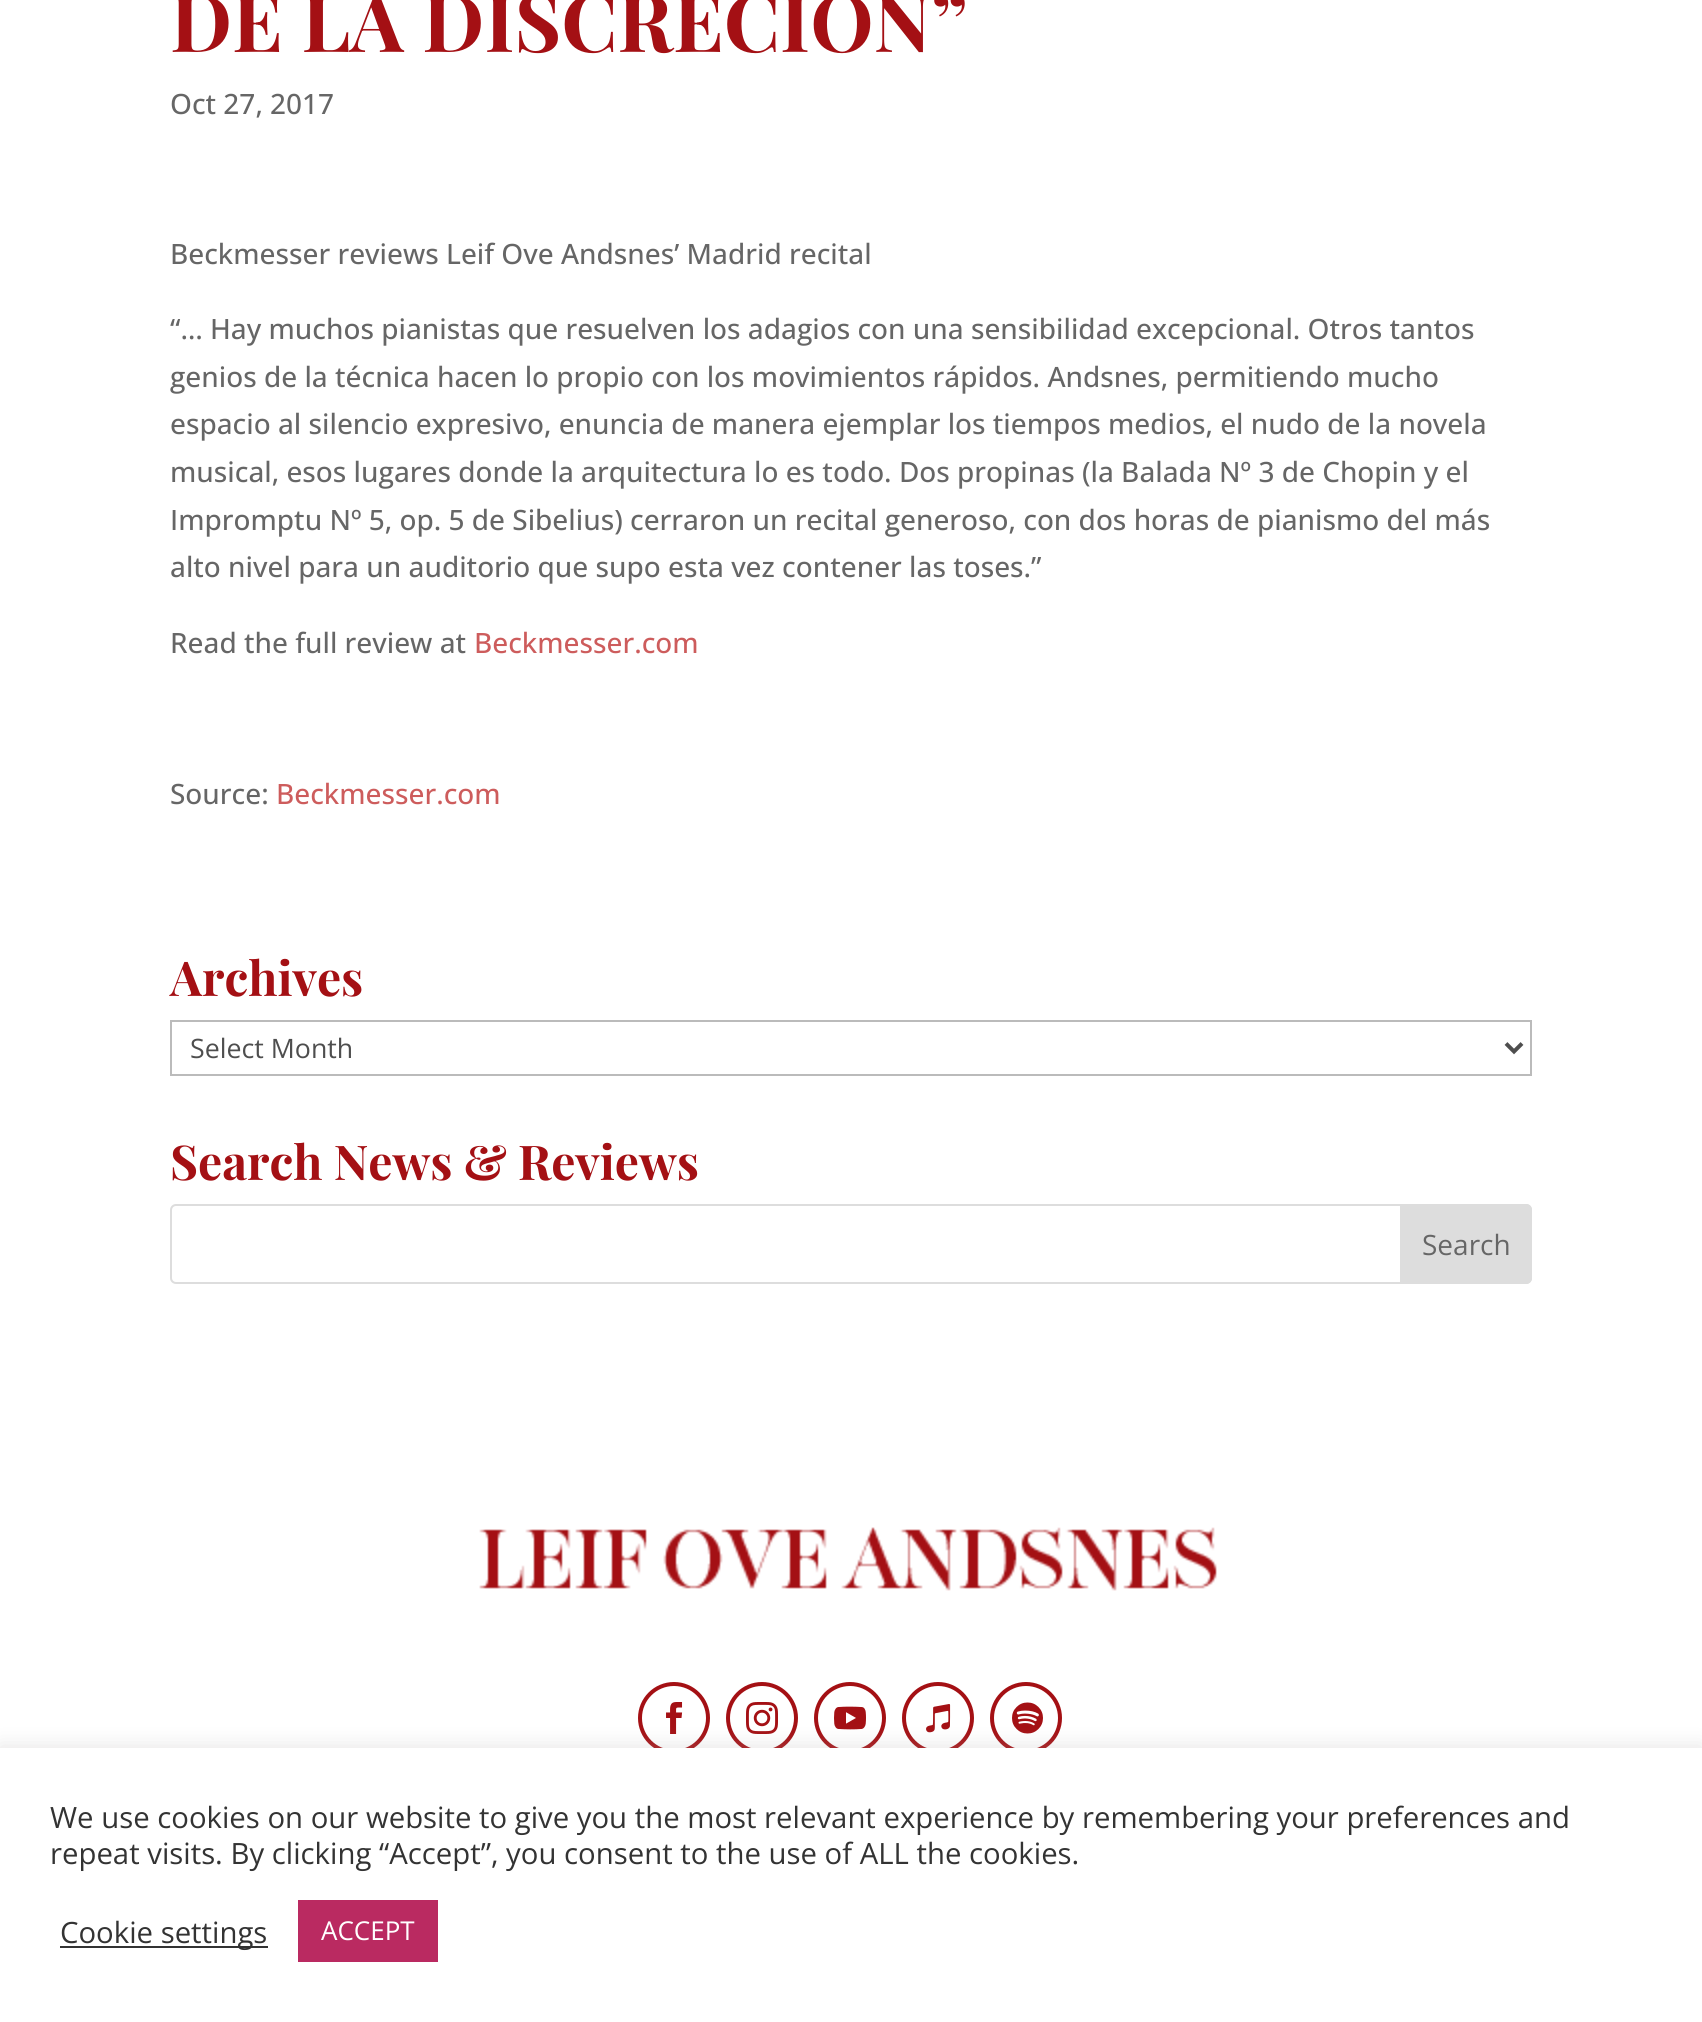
#include <cairo/cairo.h>
#include <math.h>
#include <stddef.h>

typedef struct { double x, y; const char *s; } line_t;
typedef struct { double x, y, w, h; unsigned color; } box_t;
static cairo_t *cr;

static void rgb(unsigned color)
{
	cairo_set_source_rgb(cr, (color >> 16) / 255.0, (color >> 8 & 255) / 255.0, (color & 255) / 255.0);
}

static void rrect(double x, double y, double w, double h, double r)
{
	cairo_new_sub_path(cr);
	cairo_arc(cr, x + w - r, y + h - r, r, 0, M_PI / 2);
	cairo_arc(cr, x + r, y + h - r, r, M_PI / 2, M_PI);
	cairo_arc(cr, x + r, y + r, r, M_PI, 1.5 * M_PI);
	cairo_arc(cr, x + w - r, y + r, r, 1.5 * M_PI, 2 * M_PI);
	cairo_close_path(cr);
}

static void soft_shadow(double x, double y, double w, double h, double r, double blur, double alpha)
{
	cairo_push_group_with_content(cr, CAIRO_CONTENT_ALPHA);
	cairo_set_operator(cr, CAIRO_OPERATOR_SOURCE);
	for (int i = 15; i >= -15 && fmin(w, h) + blur * i / 3 > 0; i -= 2) {
		double e = blur * i / 6;
		cairo_set_source_rgba(cr, 0, 0, 0, alpha * erfc((i - 1) / 8.5) / 2);
		rrect(x - e, y - e, w + 2 * e, h + 2 * e, fmax(0, fmin(r + e + blur * .6, fmin(w, h) / 2 + e)));
		cairo_fill(cr);
	}
	cairo_pattern_t *soft = cairo_pop_group(cr);
	cairo_mask(cr, soft);
	cairo_pattern_destroy(soft);
}

static void image(const char *path, double x, double y, double w, double h)
{
	cairo_surface_t *image = cairo_image_surface_create_from_png(path);
	cairo_save(cr);
	cairo_set_source_surface(cr, image, x, y);
	cairo_rectangle(cr, x, y, w, h);
	cairo_fill(cr);
	cairo_restore(cr);
	cairo_surface_destroy(image);
}

int main(void) {
	cairo_surface_t *surface = cairo_image_surface_create(CAIRO_FORMAT_RGB24, 1702, 2022);
	cr = cairo_create(surface);
	cairo_font_options_t *options = cairo_font_options_create();
	cairo_font_options_set_hint_metrics(options, CAIRO_HINT_METRICS_OFF);
	cairo_font_options_set_hint_style(options, CAIRO_HINT_STYLE_NONE);
	cairo_set_font_options(cr, options);
	cairo_set_miter_limit(cr, 4);
	rgb(0xffffff);
	cairo_paint(cr);
	cairo_rectangle(cr, 171, 1021, 1360, 54);
	rgb(0xbbbbbb);
	cairo_stroke(cr);
	cairo_new_path(cr);
	cairo_move_to(cr, 1506, 1043.5);
	cairo_line_to(cr, 1514, 1051.5);
	cairo_line_to(cr, 1522, 1043.5);
	rgb(0x4e4e4e);
	cairo_set_line_width(cr, 4);
	cairo_stroke(cr);
	rrect(171, 1205, 1360, 78, 5);
	rgb(0xdddddd);
	cairo_set_line_width(cr, 2);
	cairo_stroke(cr);
	cairo_new_path(cr);
	cairo_move_to(cr, 1401, 1205);
	cairo_line_to(cr, 1526, 1205);
	cairo_curve_to(cr, 1529, 1205, 1531, 1207, 1531, 1210);
	cairo_line_to(cr, 1531, 1278);
	cairo_curve_to(cr, 1531, 1281, 1529, 1283, 1526, 1283);
	cairo_line_to(cr, 1401, 1283);
	cairo_close_path(cr);
	cairo_fill_preserve(cr);
	cairo_stroke(cr);
	image("img/1.png", 479, 1527, 738, 64);
	cairo_arc(cr, 674, 1718, 34, 0, 2 * M_PI);
	rgb(0xa41014);
	cairo_set_line_width(cr, 4);
	cairo_stroke(cr);
	image("img/2.png", 666, 1702, 17, 32);
	cairo_arc(cr, 762, 1718, 34, 0, 2 * M_PI);
	cairo_stroke(cr);
	image("img/3.png", 746, 1702, 32, 32);
	cairo_arc(cr, 850, 1718, 34, 0, 2 * M_PI);
	cairo_stroke(cr);
	image("img/4.png", 834, 1706, 32, 24);
	cairo_arc(cr, 938, 1718, 34, 0, 2 * M_PI);
	cairo_stroke(cr);
	image("img/5.png", 926, 1704, 25, 29);
	cairo_arc(cr, 1026, 1718, 34, 0, 2 * M_PI);
	cairo_stroke(cr);
	image("img/6.png", 1012, 1702, 31, 32);
	rgb(0xacabab);
	soft_shadow(0, 1746, 1702, 274, 0, 10, 0.3);
	{
		static const box_t items[] = {
			{0, 1748, 1702, 274, 0xffffff},
			{60, 1946, 208, 2, 0x333333},
			{298, 1900, 140, 62, 0xba2a61},
		};
		for (size_t i = 0; i < sizeof items / sizeof *items; i++) {
			rgb(items[i].color);
			cairo_rectangle(cr, items[i].x, items[i].y, items[i].w, items[i].h);
			cairo_fill(cr);
		}
	}
	cairo_select_font_face(cr, "Playfair Display", CAIRO_FONT_SLANT_NORMAL, CAIRO_FONT_WEIGHT_BOLD);
	cairo_set_font_size(cr, 80);
	rgb(0xa41014);
	cairo_move_to(cr, 170, 52);
	cairo_show_text(cr, "DE LA DISCRECIÓN”");
	cairo_select_font_face(cr, "Open Sans Medium", CAIRO_FONT_SLANT_NORMAL, CAIRO_FONT_WEIGHT_NORMAL);
	cairo_set_font_size(cr, 28);
	rgb(0x666666);
	{
		static const line_t items[] = {
			{170, 114, "Oct 27, 2017"},
			{170, 264, "Beckmesser reviews Leif Ove Andsnes’ Madrid recital"},
			{170, 339, "“… Hay muchos pianistas que resuelven los adagios con una sensibilidad excepcional. Otros tantos"},
			{170, 387, "genios de la técnica hacen lo propio con los movimientos rápidos. Andsnes, permitiendo mucho"},
			{170, 434, "espacio al silencio expresivo, enuncia de manera ejemplar los tiempos medios, el nudo de la novela"},
			{170, 482, "musical, esos lugares donde la arquitectura lo es todo. Dos propinas (la Balada Nº 3 de Chopin y el"},
			{170, 530, "Impromptu Nº 5, op. 5 de Sibelius) cerraron un recital generoso, con dos horas de pianismo del más"},
			{170, 577, "alto nivel para un auditorio que supo esta vez contener las toses.”"},
			{170, 653, "Read the full review at"},
		};
		for (size_t i = 0; i < sizeof items / sizeof *items; i++) {
			cairo_move_to(cr, items[i].x, items[i].y);
			cairo_show_text(cr, items[i].s);
		}
	}
	rgb(0xcd5c5c);
	cairo_move_to(cr, 474, 653);
	cairo_show_text(cr, "Beckmesser.com");
	rgb(0x666666);
	cairo_move_to(cr, 170, 804);
	cairo_show_text(cr, "Source:");
	rgb(0xcd5c5c);
	cairo_move_to(cr, 276, 804);
	cairo_show_text(cr, "Beckmesser.com");
	cairo_select_font_face(cr, "Playfair Display", CAIRO_FONT_SLANT_NORMAL, CAIRO_FONT_WEIGHT_BOLD);
	cairo_set_font_size(cr, 48);
	rgb(0xa41014);
	cairo_move_to(cr, 170, 996);
	cairo_show_text(cr, "Archives");
	cairo_select_font_face(cr, "Open Sans", CAIRO_FONT_SLANT_NORMAL, CAIRO_FONT_WEIGHT_NORMAL);
	cairo_set_font_size(cr, 26.75);
	rgb(0x4e4e4e);
	cairo_move_to(cr, 190, 1058);
	cairo_show_text(cr, "Select Month");
	cairo_select_font_face(cr, "Playfair Display", CAIRO_FONT_SLANT_NORMAL, CAIRO_FONT_WEIGHT_BOLD);
	cairo_set_font_size(cr, 48);
	rgb(0xa41014);
	cairo_move_to(cr, 170, 1180);
	cairo_show_text(cr, "Search News & Reviews");
	cairo_select_font_face(cr, "Open Sans", CAIRO_FONT_SLANT_NORMAL, CAIRO_FONT_WEIGHT_NORMAL);
	cairo_set_font_size(cr, 28);
	rgb(0x666666);
	cairo_move_to(cr, 1422, 1255);
	cairo_show_text(cr, "Search");
	cairo_set_font_size(cr, 29.33);
	rgb(0x333333);
	{
		static const line_t items[] = {
			{50, 1828, "We use cookies on our website to give you the most relevant experience by remembering your preferences and"},
			{50, 1864, "repeat visits. By clicking “Accept”, you consent to the use of ALL the cookies."},
			{60, 1943, "Cookie settings"},
		};
		for (size_t i = 0; i < sizeof items / sizeof *items; i++) {
			cairo_move_to(cr, items[i].x, items[i].y);
			cairo_show_text(cr, items[i].s);
		}
	}
	cairo_set_font_size(cr, 26);
	rgb(0xffffff);
	cairo_move_to(cr, 321, 1940);
	cairo_show_text(cr, "ACCEPT");
	cairo_surface_write_to_png(surface, "page.png");
	cairo_font_options_destroy(options);
	cairo_destroy(cr);
	cairo_surface_destroy(surface);
	return 0;
}
